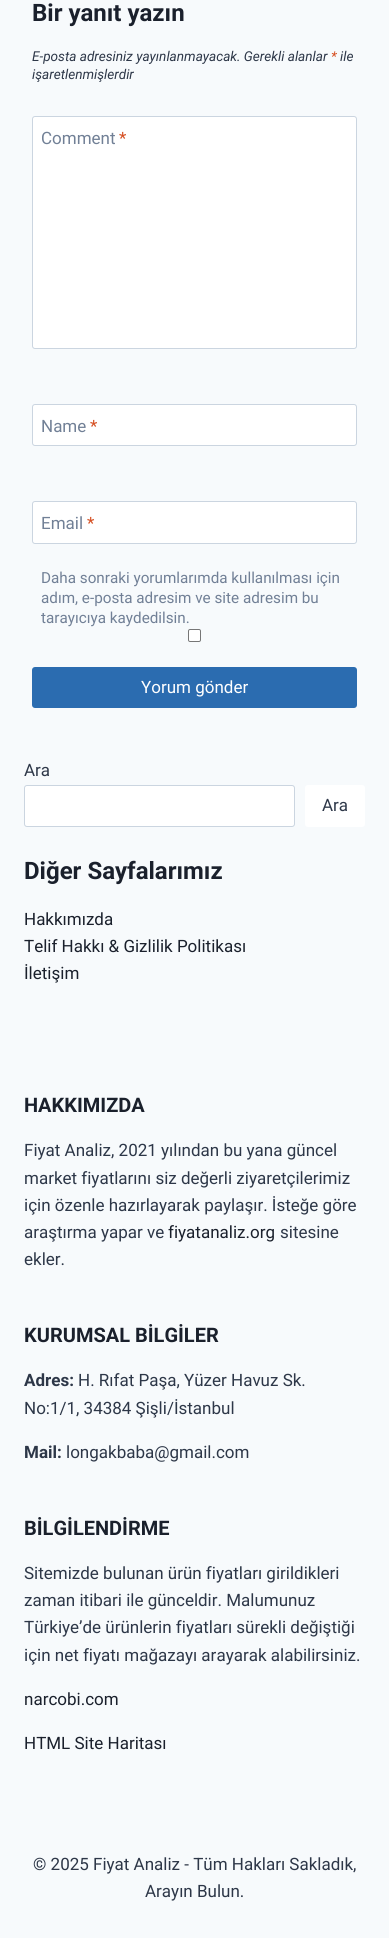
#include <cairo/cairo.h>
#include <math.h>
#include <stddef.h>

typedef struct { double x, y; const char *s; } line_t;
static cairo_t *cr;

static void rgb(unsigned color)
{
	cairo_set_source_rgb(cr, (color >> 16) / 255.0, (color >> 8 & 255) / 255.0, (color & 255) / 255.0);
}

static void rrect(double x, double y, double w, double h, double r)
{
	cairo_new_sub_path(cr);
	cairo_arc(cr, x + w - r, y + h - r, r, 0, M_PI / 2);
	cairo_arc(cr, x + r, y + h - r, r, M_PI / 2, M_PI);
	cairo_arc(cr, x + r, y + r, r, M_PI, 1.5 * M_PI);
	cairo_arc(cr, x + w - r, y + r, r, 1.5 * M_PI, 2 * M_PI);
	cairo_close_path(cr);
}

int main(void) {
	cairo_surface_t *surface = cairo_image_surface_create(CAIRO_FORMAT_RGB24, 389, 1938);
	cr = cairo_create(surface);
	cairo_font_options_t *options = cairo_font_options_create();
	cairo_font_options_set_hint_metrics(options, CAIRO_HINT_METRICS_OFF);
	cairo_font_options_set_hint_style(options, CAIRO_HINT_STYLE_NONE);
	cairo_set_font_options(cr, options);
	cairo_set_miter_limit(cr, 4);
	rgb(0xf7fafc);
	cairo_paint(cr);
	rgb(0xffffff);
	rrect(32.5, 116.5, 324, 232, 2.5);
	cairo_fill_preserve(cr);
	rgb(0xcbd5e0);
	cairo_set_line_width(cr, 1);
	cairo_stroke(cr);
	rgb(0xffffff);
	rrect(32.5, 404.5, 324, 41, 2.5);
	cairo_fill_preserve(cr);
	rgb(0xcbd5e0);
	cairo_stroke(cr);
	rgb(0xffffff);
	rrect(32.5, 501.5, 324, 42, 2.5);
	cairo_fill_preserve(cr);
	rgb(0xcbd5e0);
	cairo_stroke(cr);
	rgb(0xffffff);
	rrect(188.5, 629.5, 12, 12, 1.5);
	cairo_fill_preserve(cr);
	rgb(0x767676);
	cairo_stroke(cr);
	rgb(0x2b6cb0);
	rrect(32, 667, 325, 41, 3);
	cairo_fill(cr);
	rgb(0xffffff);
	rrect(24.5, 785.5, 270, 41, 2.5);
	cairo_fill_preserve(cr);
	rgb(0xcbd5e0);
	cairo_stroke(cr);
	rgb(0xffffff);
	rrect(305, 785, 60, 42, 3);
	cairo_fill(cr);
	cairo_select_font_face(cr, "Roboto", CAIRO_FONT_SLANT_NORMAL, CAIRO_FONT_WEIGHT_BOLD);
	cairo_set_font_size(cr, 24);
	rgb(0x1a202c);
	cairo_move_to(cr, 32, 21);
	cairo_show_text(cr, "Bir yanıt yazın");
	cairo_select_font_face(cr, "Roboto", CAIRO_FONT_SLANT_ITALIC, CAIRO_FONT_WEIGHT_NORMAL);
	cairo_set_font_size(cr, 13.6);
	rgb(0x2d3748);
	cairo_move_to(cr, 32, 61);
	cairo_show_text(cr, "E-posta adresiniz yayınlanmayacak. Gerekli alanlar");
	rgb(0xd54e21);
	cairo_move_to(cr, 331, 61);
	cairo_show_text(cr, "*");
	rgb(0x2d3748);
	cairo_move_to(cr, 340, 61);
	cairo_show_text(cr, "ile");
	cairo_move_to(cr, 32, 79);
	cairo_show_text(cr, "işaretlenmişlerdir");
	cairo_select_font_face(cr, "Roboto", CAIRO_FONT_SLANT_NORMAL, CAIRO_FONT_WEIGHT_NORMAL);
	cairo_set_font_size(cr, 17);
	rgb(0x718096);
	cairo_move_to(cr, 41, 144);
	cairo_show_text(cr, "Comment");
	rgb(0xd54e21);
	cairo_move_to(cr, 119, 144);
	cairo_show_text(cr, "*");
	rgb(0x718096);
	cairo_move_to(cr, 41, 432);
	cairo_show_text(cr, "Name");
	rgb(0xd54e21);
	cairo_move_to(cr, 90, 432);
	cairo_show_text(cr, "*");
	rgb(0x718096);
	cairo_move_to(cr, 41, 529);
	cairo_show_text(cr, "Email");
	rgb(0xd54e21);
	cairo_move_to(cr, 87, 529);
	cairo_show_text(cr, "*");
	cairo_set_font_size(cr, 15.25);
	rgb(0x718096);
	{
		static const line_t items[] = {
			{41, 583, "Daha sonraki yorumlarımda kullanılması için"},
			{41, 603, "adım, e-posta adresim ve site adresim bu"},
			{41, 623, "tarayıcıya kaydedilsin."},
		};
		for (size_t i = 0; i < sizeof items / sizeof *items; i++) {
			cairo_move_to(cr, items[i].x, items[i].y);
			cairo_show_text(cr, items[i].s);
		}
	}
	cairo_set_font_size(cr, 17);
	rgb(0xffffff);
	cairo_move_to(cr, 141, 693);
	cairo_show_text(cr, "Yorum gönder");
	rgb(0x2d3748);
	cairo_move_to(cr, 24, 776);
	cairo_show_text(cr, "Ara");
	cairo_move_to(cr, 322, 811);
	cairo_show_text(cr, "Ara");
	cairo_select_font_face(cr, "Roboto", CAIRO_FONT_SLANT_NORMAL, CAIRO_FONT_WEIGHT_BOLD);
	cairo_set_font_size(cr, 24);
	rgb(0x1a202c);
	cairo_move_to(cr, 24, 879);
	cairo_show_text(cr, "Diğer Sayfalarımız");
	cairo_select_font_face(cr, "Roboto", CAIRO_FONT_SLANT_NORMAL, CAIRO_FONT_WEIGHT_NORMAL);
	cairo_set_font_size(cr, 17);
	{
		static const line_t items[] = {
			{24, 925, "Hakkımızda"},
			{24, 952, "Telif Hakkı & Gizlilik Politikası"},
			{24, 979, "İletişim"},
		};
		for (size_t i = 0; i < sizeof items / sizeof *items; i++) {
			cairo_move_to(cr, items[i].x, items[i].y);
			cairo_show_text(cr, items[i].s);
		}
	}
	cairo_select_font_face(cr, "Roboto", CAIRO_FONT_SLANT_NORMAL, CAIRO_FONT_WEIGHT_BOLD);
	cairo_set_font_size(cr, 20);
	cairo_move_to(cr, 24, 1112);
	cairo_show_text(cr, "HAKKIMIZDA");
	cairo_select_font_face(cr, "Roboto", CAIRO_FONT_SLANT_NORMAL, CAIRO_FONT_WEIGHT_NORMAL);
	cairo_set_font_size(cr, 17);
	rgb(0x2d3748);
	{
		static const line_t items[] = {
			{24, 1156, "Fiyat Analiz, 2021 yılından bu yana güncel"},
			{24, 1184, "market fiyatlarını siz değerli ziyaretçilerimiz"},
			{24, 1211, "için özenle hazırlayarak paylaşır. İsteğe göre"},
			{24, 1238, "araştırma yapar ve"},
		};
		for (size_t i = 0; i < sizeof items / sizeof *items; i++) {
			cairo_move_to(cr, items[i].x, items[i].y);
			cairo_show_text(cr, items[i].s);
		}
	}
	rgb(0x1a202c);
	cairo_move_to(cr, 168, 1238);
	cairo_show_text(cr, "fiyatanaliz.org");
	rgb(0x2d3748);
	cairo_move_to(cr, 280, 1238);
	cairo_show_text(cr, "sitesine");
	cairo_move_to(cr, 24, 1265);
	cairo_show_text(cr, "ekler.");
	cairo_select_font_face(cr, "Roboto", CAIRO_FONT_SLANT_NORMAL, CAIRO_FONT_WEIGHT_BOLD);
	cairo_set_font_size(cr, 20);
	rgb(0x1a202c);
	cairo_move_to(cr, 24, 1342);
	cairo_show_text(cr, "KURUMSAL BİLGİLER");
	cairo_set_font_size(cr, 17);
	rgb(0x2d3748);
	cairo_move_to(cr, 24, 1386);
	cairo_show_text(cr, "Adres:");
	cairo_select_font_face(cr, "Roboto", CAIRO_FONT_SLANT_NORMAL, CAIRO_FONT_WEIGHT_NORMAL);
	cairo_move_to(cr, 78, 1386);
	cairo_show_text(cr, "H. Rıfat Paşa, Yüzer Havuz Sk.");
	cairo_move_to(cr, 24, 1414);
	cairo_show_text(cr, "No:1/1, 34384 Şişli/İstanbul");
	cairo_select_font_face(cr, "Roboto", CAIRO_FONT_SLANT_NORMAL, CAIRO_FONT_WEIGHT_BOLD);
	cairo_move_to(cr, 24, 1458);
	cairo_show_text(cr, "Mail:");
	cairo_select_font_face(cr, "Roboto", CAIRO_FONT_SLANT_NORMAL, CAIRO_FONT_WEIGHT_NORMAL);
	cairo_move_to(cr, 66, 1458);
	cairo_show_text(cr, "longakbaba@gmail.com");
	cairo_select_font_face(cr, "Roboto", CAIRO_FONT_SLANT_NORMAL, CAIRO_FONT_WEIGHT_BOLD);
	cairo_set_font_size(cr, 20);
	rgb(0x1a202c);
	cairo_move_to(cr, 24, 1535);
	cairo_show_text(cr, "BİLGİLENDİRME");
	cairo_select_font_face(cr, "Roboto", CAIRO_FONT_SLANT_NORMAL, CAIRO_FONT_WEIGHT_NORMAL);
	cairo_set_font_size(cr, 17);
	rgb(0x2d3748);
	{
		static const line_t items[] = {
			{24, 1579, "Sitemizde bulunan ürün fiyatları girildikleri"},
			{24, 1606, "zaman itibari ile günceldir. Malumunuz"},
			{24, 1633, "Türkiye’de ürünlerin fiyatları sürekli değiştiği"},
			{24, 1661, "için net fiyatı mağazayı arayarak alabilirsiniz."},
		};
		for (size_t i = 0; i < sizeof items / sizeof *items; i++) {
			cairo_move_to(cr, items[i].x, items[i].y);
			cairo_show_text(cr, items[i].s);
		}
	}
	rgb(0x1a202c);
	cairo_move_to(cr, 24, 1705);
	cairo_show_text(cr, "narcobi.com");
	cairo_move_to(cr, 24, 1749);
	cairo_show_text(cr, "HTML Site Haritası");
	rgb(0x2d3748);
	cairo_move_to(cr, 33, 1870);
	cairo_show_text(cr, "© 2025 Fiyat Analiz - Tüm Hakları Sakladık,");
	cairo_move_to(cr, 145, 1897);
	cairo_show_text(cr, "Arayın Bulun.");
	cairo_surface_write_to_png(surface, "page.png");
	cairo_font_options_destroy(options);
	cairo_destroy(cr);
	cairo_surface_destroy(surface);
	return 0;
}
